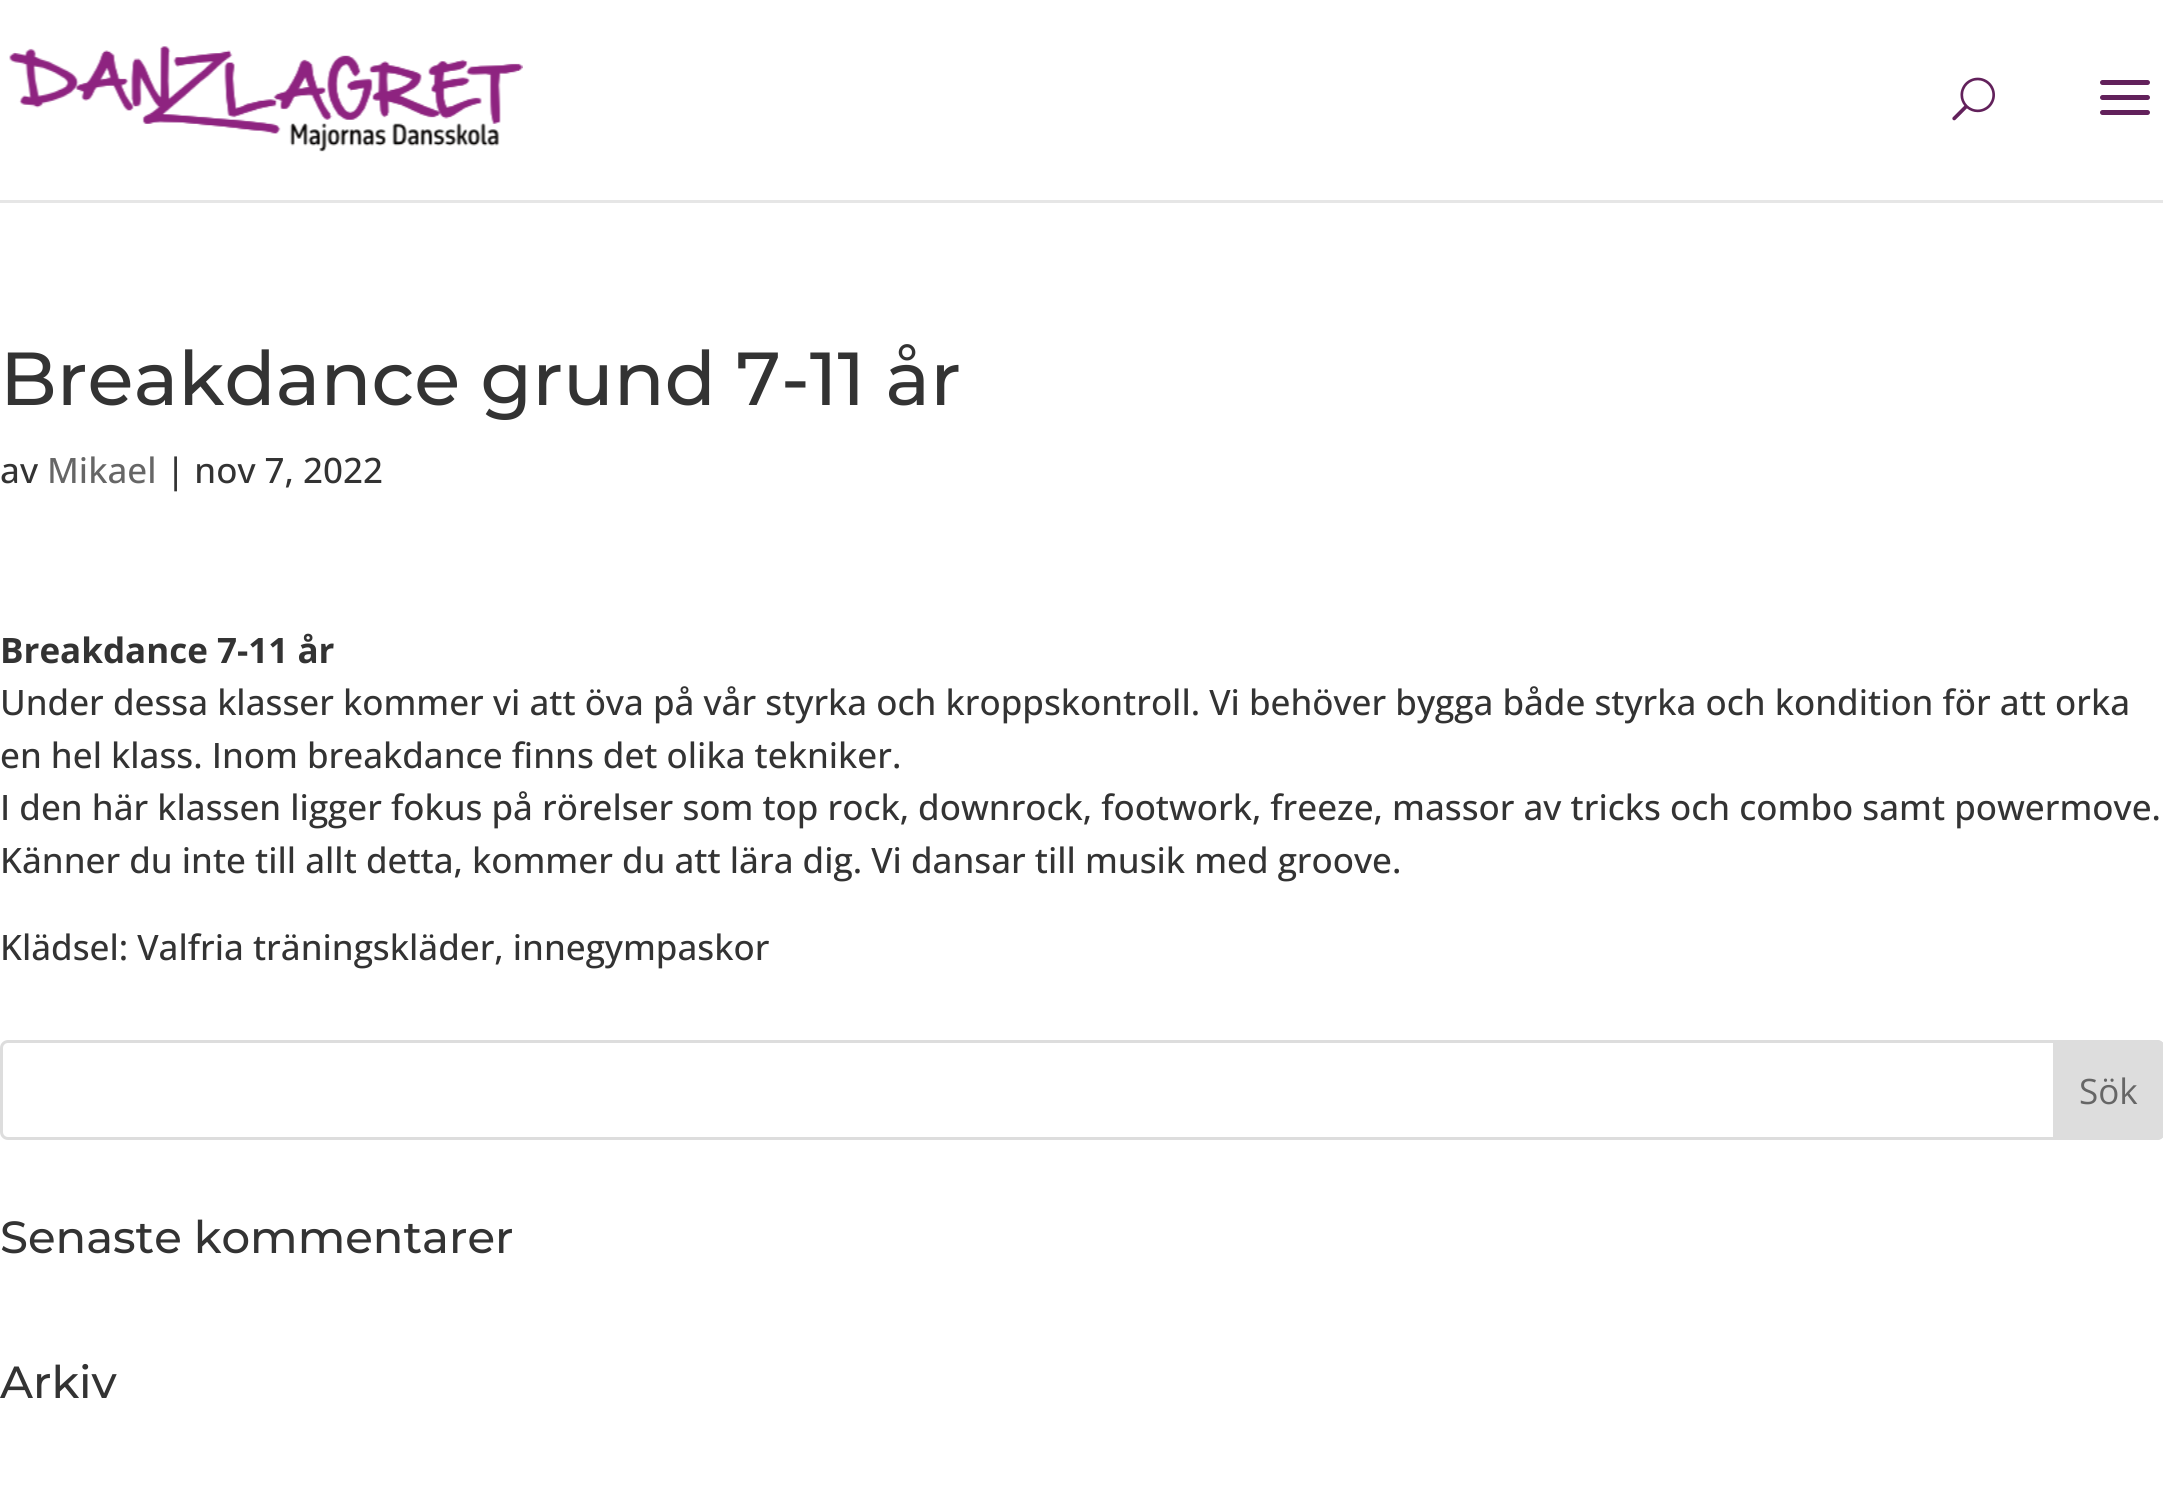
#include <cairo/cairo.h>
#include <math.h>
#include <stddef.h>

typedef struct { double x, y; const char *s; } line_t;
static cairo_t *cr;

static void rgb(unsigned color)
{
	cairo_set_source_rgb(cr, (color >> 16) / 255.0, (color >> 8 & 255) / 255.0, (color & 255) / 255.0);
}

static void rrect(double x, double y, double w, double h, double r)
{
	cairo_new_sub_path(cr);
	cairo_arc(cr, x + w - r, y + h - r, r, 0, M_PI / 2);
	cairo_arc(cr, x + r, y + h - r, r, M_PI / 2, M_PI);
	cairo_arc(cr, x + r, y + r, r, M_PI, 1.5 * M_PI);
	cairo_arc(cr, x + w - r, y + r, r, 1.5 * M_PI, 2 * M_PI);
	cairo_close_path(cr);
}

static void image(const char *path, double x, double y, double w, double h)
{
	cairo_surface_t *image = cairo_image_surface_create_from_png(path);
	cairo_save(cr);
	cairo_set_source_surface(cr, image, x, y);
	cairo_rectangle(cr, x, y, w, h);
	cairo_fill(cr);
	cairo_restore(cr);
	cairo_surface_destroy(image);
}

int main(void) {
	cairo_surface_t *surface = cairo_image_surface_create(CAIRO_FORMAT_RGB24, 2163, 1498);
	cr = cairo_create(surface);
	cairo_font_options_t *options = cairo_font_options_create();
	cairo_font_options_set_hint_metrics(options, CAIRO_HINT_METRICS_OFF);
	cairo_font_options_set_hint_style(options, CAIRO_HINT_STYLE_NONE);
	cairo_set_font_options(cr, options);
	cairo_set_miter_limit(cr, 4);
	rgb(0xffffff);
	cairo_paint(cr);
	rgb(0xe6e6e6);
	cairo_rectangle(cr, 0, 200, 2163, 3);
	cairo_fill(cr);
	image("img/1.png", 9, 46, 514, 106);
	image("img/2.png", 1952, 77, 43, 44);
	image("img/3.png", 2100, 80, 50, 35);
	rrect(1.5, 1041.5, 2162, 97, 6.5);
	rgb(0xdddddd);
	cairo_set_line_width(cr, 3);
	cairo_stroke(cr);
	cairo_new_path(cr);
	cairo_move_to(cr, 2054.5, 1041.5);
	cairo_line_to(cr, 2157, 1041.5);
	cairo_curve_to(cr, 2160.5, 1041.5, 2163.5, 1044.5, 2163.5, 1048);
	cairo_line_to(cr, 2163.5, 1132);
	cairo_curve_to(cr, 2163.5, 1135.5, 2160.5, 1138.5, 2157, 1138.5);
	cairo_line_to(cr, 2054.5, 1138.5);
	cairo_close_path(cr);
	cairo_fill_preserve(cr);
	cairo_stroke(cr);
	cairo_select_font_face(cr, "Montserrat Medium", CAIRO_FONT_SLANT_NORMAL, CAIRO_FONT_WEIGHT_NORMAL);
	cairo_set_font_size(cr, 75);
	rgb(0x333333);
	cairo_move_to(cr, 0, 405);
	cairo_show_text(cr, "Breakdance grund 7-11 år");
	cairo_select_font_face(cr, "Open Sans Medium", CAIRO_FONT_SLANT_NORMAL, CAIRO_FONT_WEIGHT_NORMAL);
	cairo_set_font_size(cr, 35);
	cairo_move_to(cr, 0, 483);
	cairo_show_text(cr, "av");
	rgb(0x666666);
	cairo_move_to(cr, 47, 483);
	cairo_show_text(cr, "Mikael");
	rgb(0x333333);
	cairo_move_to(cr, 166, 483);
	cairo_show_text(cr, "| nov 7, 2022");
	cairo_select_font_face(cr, "Open Sans", CAIRO_FONT_SLANT_NORMAL, CAIRO_FONT_WEIGHT_BOLD);
	cairo_move_to(cr, 0, 663);
	cairo_show_text(cr, "Breakdance 7-11 år");
	cairo_select_font_face(cr, "Open Sans Medium", CAIRO_FONT_SLANT_NORMAL, CAIRO_FONT_WEIGHT_NORMAL);
	{
		static const line_t items[] = {
			{0, 715, "Under dessa klasser kommer vi att öva på vår styrka och kroppskontroll. Vi behöver bygga både styrka och kondition för att orka"},
			{0, 768, "en hel klass. Inom breakdance finns det olika tekniker."},
			{0, 820, "I den här klassen ligger fokus på rörelser som top rock, downrock, footwork, freeze, massor av tricks och combo samt powermove."},
			{0, 873, "Känner du inte till allt detta, kommer du att lära dig. Vi dansar till musik med groove."},
			{0, 960, "Klädsel: Valfria träningskläder, innegympaskor"},
		};
		for (size_t i = 0; i < sizeof items / sizeof *items; i++) {
			cairo_move_to(cr, items[i].x, items[i].y);
			cairo_show_text(cr, items[i].s);
		}
	}
	cairo_select_font_face(cr, "Open Sans", CAIRO_FONT_SLANT_NORMAL, CAIRO_FONT_WEIGHT_NORMAL);
	rgb(0x666666);
	cairo_move_to(cr, 2079, 1104);
	cairo_show_text(cr, "Sök");
	cairo_select_font_face(cr, "Montserrat Medium", CAIRO_FONT_SLANT_NORMAL, CAIRO_FONT_WEIGHT_NORMAL);
	cairo_set_font_size(cr, 45);
	rgb(0x333333);
	cairo_move_to(cr, 0, 1253);
	cairo_show_text(cr, "Senaste kommentarer");
	cairo_move_to(cr, 0, 1398);
	cairo_show_text(cr, "Arkiv");
	cairo_surface_write_to_png(surface, "page.png");
	cairo_font_options_destroy(options);
	cairo_destroy(cr);
	cairo_surface_destroy(surface);
	return 0;
}
